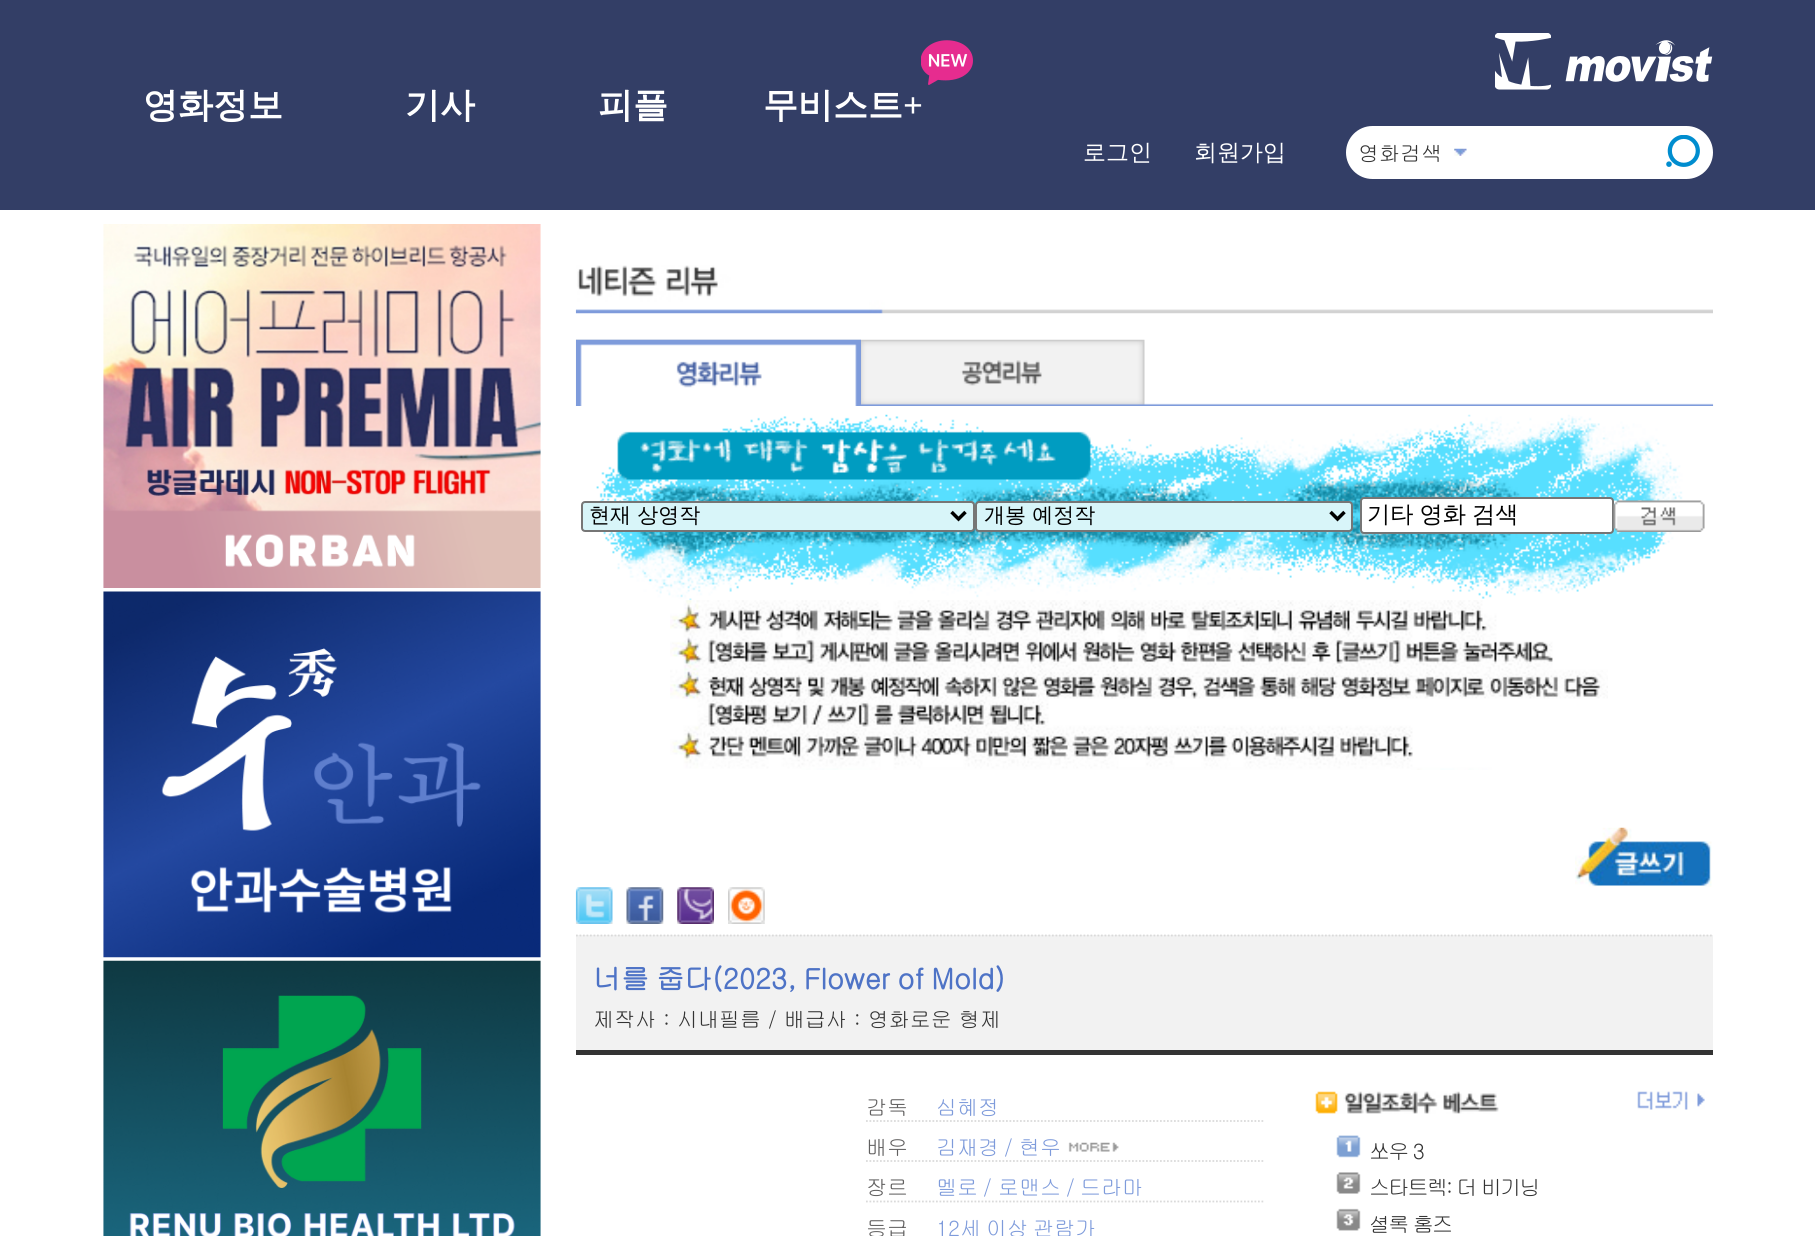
#include <cairo/cairo.h>
#include <math.h>
#include <stddef.h>

typedef struct { double x, y; const char *s; } line_t;
static cairo_t *cr;

static void rgb(unsigned color)
{
	cairo_set_source_rgb(cr, (color >> 16) / 255.0, (color >> 8 & 255) / 255.0, (color & 255) / 255.0);
}

static void tracked(double x, double y, const char *s, double letter, double word)
{
	cairo_move_to(cr, x, y);
	while (*s) {
		char ch[5] = {0};
		int n = 0;
		do ch[n++] = *s++; while ((*s & 0xC0) == 0x80);
		cairo_show_text(cr, ch);
		cairo_rel_move_to(cr, letter + word * (*ch == ' '), 0);
	}
}

static void rrect(double x, double y, double w, double h, double r)
{
	cairo_new_sub_path(cr);
	cairo_arc(cr, x + w - r, y + h - r, r, 0, M_PI / 2);
	cairo_arc(cr, x + r, y + h - r, r, M_PI / 2, M_PI);
	cairo_arc(cr, x + r, y + r, r, M_PI, 1.5 * M_PI);
	cairo_arc(cr, x + w - r, y + r, r, 1.5 * M_PI, 2 * M_PI);
	cairo_close_path(cr);
}

static void image(const char *path, double x, double y, double w, double h)
{
	cairo_surface_t *image = cairo_image_surface_create_from_png(path);
	cairo_save(cr);
	cairo_set_source_surface(cr, image, x, y);
	cairo_rectangle(cr, x, y, w, h);
	cairo_fill(cr);
	cairo_restore(cr);
	cairo_surface_destroy(image);
}

int main(void) {
	cairo_surface_t *surface = cairo_image_surface_create(CAIRO_FORMAT_RGB24, 1815, 1236);
	cr = cairo_create(surface);
	cairo_font_options_t *options = cairo_font_options_create();
	cairo_font_options_set_hint_metrics(options, CAIRO_HINT_METRICS_OFF);
	cairo_font_options_set_hint_style(options, CAIRO_HINT_STYLE_NONE);
	cairo_set_font_options(cr, options);
	cairo_set_miter_limit(cr, 4);
	rgb(0xffffff);
	cairo_paint(cr);
	rgb(0x333e66);
	cairo_rectangle(cr, 0, 0, 1815, 210);
	cairo_fill(cr);
	image("img/1.png", 921, 40, 52, 45);
	image("img/2.png", 1495, 33, 218, 57);
	rgb(0xffffff);
	rrect(1346, 126, 367, 53, 26.5);
	cairo_fill(cr);
	image("img/3.png", 1454, 148, 13, 8);
	image("img/4.png", 1666, 135, 34, 32);
	image("img/5.png", 103, 224, 438, 364);
	image("img/6.png", 103, 591, 438, 367);
	image("img/7.png", 103, 960, 438, 276);
	image("img/8.png", 575, 265, 1138, 49);
	image("img/9.png", 575, 339, 1139, 67);
	image("img/10.png", 576, 339, 285, 67);
	image("img/11.png", 594, 414, 1089, 187);
	rgb(0xd8f5f9);
	rrect(582, 502, 392, 29, 3);
	cairo_fill_preserve(cr);
	rgb(0x767676);
	cairo_stroke(cr);
	cairo_new_path(cr);
	cairo_move_to(cr, 951.5, 512);
	cairo_line_to(cr, 958.5, 519);
	cairo_line_to(cr, 965.5, 512);
	rgb(0x000000);
	cairo_set_line_width(cr, 3.5);
	cairo_stroke(cr);
	rgb(0xd8f5f9);
	rrect(976, 502, 376, 29, 3);
	cairo_fill_preserve(cr);
	rgb(0x767676);
	cairo_set_line_width(cr, 2);
	cairo_stroke(cr);
	cairo_new_path(cr);
	cairo_move_to(cr, 1330.5, 512);
	cairo_line_to(cr, 1337.5, 519);
	cairo_line_to(cr, 1344.5, 512);
	rgb(0x000000);
	cairo_set_line_width(cr, 3.5);
	cairo_stroke(cr);
	rgb(0xffffff);
	rrect(1361, 498, 252, 35, 3);
	cairo_fill_preserve(cr);
	rgb(0x767676);
	cairo_set_line_width(cr, 2);
	cairo_stroke(cr);
	image("img/12.png", 1613, 500, 92, 32);
	image("img/13.png", 670, 600, 938, 170);
	image("img/14.png", 1575, 827, 137, 60);
	image("img/15.png", 575, 887, 38, 37);
	image("img/16.png", 626, 887, 38, 37);
	image("img/17.png", 677, 887, 37, 37);
	image("img/18.png", 728, 887, 37, 37);
	rgb(0xf2f2f2);
	cairo_rectangle(cr, 576, 935, 1137, 115);
	cairo_fill(cr);
	cairo_save(cr);
	cairo_rectangle(cr, 576, 259, 1137, 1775);
	cairo_clip(cr);
	cairo_new_path(cr);
	cairo_move_to(cr, 576, 935.5);
	cairo_line_to(cr, 1729, 935.5);
	rgb(0xdadada);
	cairo_set_line_width(cr, 1.8);
	cairo_set_dash(cr, (double[]){1.75, 1.75}, 2, 0);
	cairo_stroke(cr);
	cairo_restore(cr);
	rgb(0x333333);
	cairo_rectangle(cr, 576, 1050, 1137, 5);
	cairo_fill(cr);
	cairo_new_path(cr);
	cairo_move_to(cr, 866, 1121);
	cairo_line_to(cr, 1265, 1121);
	rgb(0xdadada);
	cairo_set_line_width(cr, 1.8);
	cairo_set_dash(cr, (double[]){1.75, 1.75}, 2, 0);
	cairo_stroke(cr);
	cairo_new_path(cr);
	cairo_move_to(cr, 866, 1161);
	cairo_line_to(cr, 1265, 1161);
	cairo_stroke(cr);
	image("img/19.png", 1068, 1142, 51, 10);
	cairo_new_path(cr);
	cairo_move_to(cr, 866, 1201.5);
	cairo_line_to(cr, 1265, 1201.5);
	cairo_stroke(cr);
	image("img/20.png", 1315, 1091, 184, 23);
	image("img/21.png", 1637, 1091, 68, 19);
	image("img/22.png", 1336, 1135, 25, 23);
	image("img/23.png", 1336, 1172, 25, 22);
	image("img/24.png", 1336, 1208, 25, 23);
	cairo_select_font_face(cr, "WenQuanYi Zen Hei", CAIRO_FONT_SLANT_NORMAL, CAIRO_FONT_WEIGHT_BOLD);
	cairo_set_font_size(cr, 35);
	rgb(0xffffff);
	{
		static const line_t items[] = {
			{143, 117, "영화정보"},
			{405, 117, "기사"},
			{598, 117, "피플"},
			{763, 117, "무비스트"},
		};
		for (size_t i = 0; i < sizeof items / sizeof *items; i++) {
			cairo_move_to(cr, items[i].x, items[i].y);
			cairo_show_text(cr, items[i].s);
		}
	}
	cairo_select_font_face(cr, "Liberation Serif", CAIRO_FONT_SLANT_NORMAL, CAIRO_FONT_WEIGHT_BOLD);
	cairo_move_to(cr, 903, 117);
	cairo_show_text(cr, "+");
	cairo_select_font_face(cr, "WenQuanYi Zen Hei Medium", CAIRO_FONT_SLANT_NORMAL, CAIRO_FONT_WEIGHT_NORMAL);
	cairo_set_font_size(cr, 23);
	cairo_move_to(cr, 1083, 160);
	cairo_show_text(cr, "로그인");
	cairo_move_to(cr, 1194, 160);
	cairo_show_text(cr, "회원가입");
	cairo_select_font_face(cr, "Gulim", CAIRO_FONT_SLANT_NORMAL, CAIRO_FONT_WEIGHT_NORMAL);
	cairo_set_font_size(cr, 21);
	rgb(0x333333);
	cairo_move_to(cr, 1358, 161);
	cairo_show_text(cr, "영화검색");
	cairo_select_font_face(cr, "WenQuanYi Zen Hei Medium", CAIRO_FONT_SLANT_NORMAL, CAIRO_FONT_WEIGHT_NORMAL);
	rgb(0x000000);
	cairo_move_to(cr, 589, 522);
	cairo_show_text(cr, "현재 상영작");
	cairo_move_to(cr, 984, 522);
	cairo_show_text(cr, "개봉 예정작");
	cairo_set_font_size(cr, 23.25);
	tracked(1367, 522, "기타 영화 검색", 0, -1);
	cairo_select_font_face(cr, "Gulim", CAIRO_FONT_SLANT_NORMAL, CAIRO_FONT_WEIGHT_BOLD);
	cairo_set_font_size(cr, 28);
	rgb(0x4e73c6);
	tracked(593, 989, "너를 줍다(2023, Flower of Mold)", 0, -2);
	cairo_select_font_face(cr, "Gulim", CAIRO_FONT_SLANT_NORMAL, CAIRO_FONT_WEIGHT_NORMAL);
	cairo_set_font_size(cr, 21);
	rgb(0x333333);
	cairo_move_to(cr, 593, 1027);
	cairo_show_text(cr, "제작사 : 시내필름 / 배급사 : 영화로운 형제");
	rgb(0x616060);
	cairo_move_to(cr, 866, 1115);
	cairo_show_text(cr, "감독");
	rgb(0x7e9bdb);
	cairo_move_to(cr, 936, 1115);
	cairo_show_text(cr, "심혜정");
	rgb(0x616060);
	cairo_move_to(cr, 866, 1155);
	cairo_show_text(cr, "배우");
	rgb(0x7e9bdb);
	{
		static const line_t items[] = {
			{936, 1155, "김재경"},
			{1004, 1155, "/"},
			{1019, 1155, "현우"},
		};
		for (size_t i = 0; i < sizeof items / sizeof *items; i++) {
			cairo_move_to(cr, items[i].x, items[i].y);
			cairo_show_text(cr, items[i].s);
		}
	}
	rgb(0x616060);
	cairo_move_to(cr, 866, 1195);
	cairo_show_text(cr, "장르");
	rgb(0x7e9bdb);
	{
		static const line_t items[] = {
			{936, 1195, "멜로"},
			{983, 1195, "/"},
			{998, 1195, "로맨스"},
			{1066, 1195, "/"},
			{1080, 1195, "드라마"},
		};
		for (size_t i = 0; i < sizeof items / sizeof *items; i++) {
			cairo_move_to(cr, items[i].x, items[i].y);
			cairo_show_text(cr, items[i].s);
		}
	}
	rgb(0x616060);
	cairo_move_to(cr, 866, 1236);
	cairo_show_text(cr, "등급");
	rgb(0x7e9bdb);
	tracked(936, 1236, "12세 이상 관람가", 0, -2);
	rgb(0x333333);
	{
		static const line_t items[] = {
			{1369, 1159, "쏘우 3"},
			{1369, 1195, "스타트렉: 더 비기닝"},
			{1369, 1232, "셜록 홈즈"},
		};
		for (size_t i = 0; i < sizeof items / sizeof *items; i++) {
			tracked(items[i].x, items[i].y, items[i].s, -1.75, 0);
		}
	}
	cairo_surface_write_to_png(surface, "page.png");
	cairo_font_options_destroy(options);
	cairo_destroy(cr);
	cairo_surface_destroy(surface);
	return 0;
}
